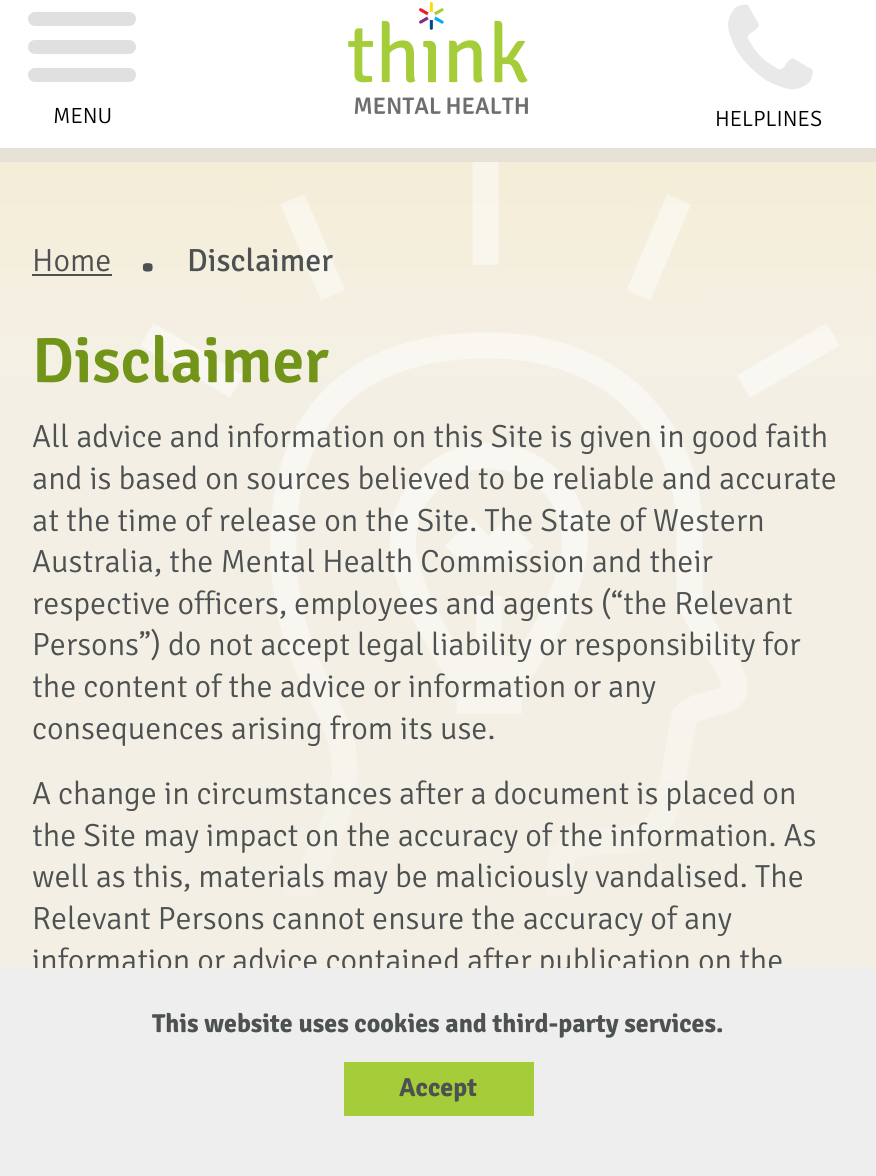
#include <cairo/cairo.h>
#include <math.h>
#include <stddef.h>

typedef struct { double x, y; const char *s; } line_t;
static cairo_t *cr;

static void rgb(unsigned color)
{
	cairo_set_source_rgb(cr, (color >> 16) / 255.0, (color >> 8 & 255) / 255.0, (color & 255) / 255.0);
}

static void rrect(double x, double y, double w, double h, double r)
{
	cairo_new_sub_path(cr);
	cairo_arc(cr, x + w - r, y + h - r, r, 0, M_PI / 2);
	cairo_arc(cr, x + r, y + h - r, r, M_PI / 2, M_PI);
	cairo_arc(cr, x + r, y + r, r, M_PI, 1.5 * M_PI);
	cairo_arc(cr, x + w - r, y + r, r, 1.5 * M_PI, 2 * M_PI);
	cairo_close_path(cr);
}

static void image(const char *path, double x, double y, double w, double h)
{
	cairo_surface_t *image = cairo_image_surface_create_from_png(path);
	cairo_save(cr);
	cairo_set_source_surface(cr, image, x, y);
	cairo_rectangle(cr, x, y, w, h);
	cairo_fill(cr);
	cairo_restore(cr);
	cairo_surface_destroy(image);
}

int main(void) {
	cairo_surface_t *surface = cairo_image_surface_create(CAIRO_FORMAT_RGB24, 876, 1176);
	cr = cairo_create(surface);
	cairo_font_options_t *options = cairo_font_options_create();
	cairo_font_options_set_hint_metrics(options, CAIRO_HINT_METRICS_OFF);
	cairo_font_options_set_hint_style(options, CAIRO_HINT_STYLE_NONE);
	cairo_set_font_options(cr, options);
	cairo_set_miter_limit(cr, 4);
	rgb(0xffffff);
	cairo_paint(cr);
	rgb(0xe6e3d6);
	cairo_rectangle(cr, 0, 148, 876, 14);
	cairo_fill(cr);
	rgb(0xe0e0e0);
	rrect(28, 40, 108, 14, 7);
	cairo_fill(cr);
	rrect(28, 12, 108, 14, 7);
	cairo_fill(cr);
	rrect(28, 68, 108, 14, 7);
	cairo_fill(cr);
	image("img/1.png", 348, 2, 180, 112);
	image("img/2.png", 728, 4, 85, 86);
	rgb(0xf3efe4);
	cairo_rectangle(cr, 0, 378, 876, 590);
	cairo_fill(cr);
	image("img/3.png", 0, 162, 876, 735);
	rgb(0x4d5152);
	cairo_rectangle(cr, 32, 274, 80, 2);
	cairo_fill(cr);
	cairo_select_font_face(cr, "Signika Light", CAIRO_FONT_SLANT_NORMAL, CAIRO_FONT_WEIGHT_NORMAL);
	cairo_set_font_size(cr, 22);
	rgb(0x000000);
	cairo_move_to(cr, 53, 123);
	cairo_show_text(cr, "MENU");
	cairo_move_to(cr, 715, 126);
	cairo_show_text(cr, "HELPLINES");
	cairo_set_font_size(cr, 32);
	rgb(0x4d5152);
	cairo_move_to(cr, 32, 271);
	cairo_show_text(cr, "Home");
	cairo_select_font_face(cr, "Signika", CAIRO_FONT_SLANT_NORMAL, CAIRO_FONT_WEIGHT_BOLD);
	cairo_set_font_size(cr, 54);
	cairo_move_to(cr, 140, 271);
	cairo_show_text(cr, ".");
	cairo_select_font_face(cr, "Signika", CAIRO_FONT_SLANT_NORMAL, CAIRO_FONT_WEIGHT_NORMAL);
	cairo_set_font_size(cr, 32);
	cairo_move_to(cr, 187, 271);
	cairo_show_text(cr, "Disclaimer");
	cairo_select_font_face(cr, "Signika SemiBold", CAIRO_FONT_SLANT_NORMAL, CAIRO_FONT_WEIGHT_NORMAL);
	cairo_set_font_size(cr, 64);
	rgb(0x719419);
	cairo_move_to(cr, 32, 382);
	cairo_show_text(cr, "Disclaimer");
	cairo_select_font_face(cr, "Signika Light", CAIRO_FONT_SLANT_NORMAL, CAIRO_FONT_WEIGHT_NORMAL);
	cairo_set_font_size(cr, 32);
	rgb(0x4d5152);
	{
		static const line_t items[] = {
			{32, 447, "All advice and information on this Site is given in good faith"},
			{32, 489, "and is based on sources believed to be reliable and accurate"},
			{32, 531, "at the time of release on the Site. The State of Western"},
			{32, 572, "Australia, the Mental Health Commission and their"},
			{32, 614, "respective officers, employees and agents (“the Relevant"},
			{32, 655, "Persons”) do not accept legal liability or responsibility for"},
			{32, 697, "the content of the advice or information or any"},
			{32, 739, "consequences arising from its use."},
			{32, 804, "A change in circumstances after a document is placed on"},
			{32, 846, "the Site may impact on the accuracy of the information. As"},
			{32, 887, "well as this, materials may be maliciously vandalised. The"},
			{32, 929, "Relevant Persons cannot ensure the accuracy of any"},
			{32, 971, "information or advice contained after publication on the"},
		};
		for (size_t i = 0; i < sizeof items / sizeof *items; i++) {
			cairo_move_to(cr, items[i].x, items[i].y);
			cairo_show_text(cr, items[i].s);
		}
	}
	rgb(0xeeeeee);
	cairo_rectangle(cr, 0, 968, 876, 208);
	cairo_fill(cr);
	cairo_select_font_face(cr, "Signika", CAIRO_FONT_SLANT_NORMAL, CAIRO_FONT_WEIGHT_BOLD);
	cairo_set_font_size(cr, 26);
	rgb(0x4d5152);
	cairo_move_to(cr, 152, 1032);
	cairo_show_text(cr, "This website uses cookies and third-party services.");
	rgb(0xa4cd39);
	cairo_rectangle(cr, 344, 1062, 190, 54);
	cairo_fill(cr);
	rgb(0x4d5152);
	cairo_move_to(cr, 399, 1096);
	cairo_show_text(cr, "Accept");
	cairo_surface_write_to_png(surface, "page.png");
	cairo_font_options_destroy(options);
	cairo_destroy(cr);
	cairo_surface_destroy(surface);
	return 0;
}
